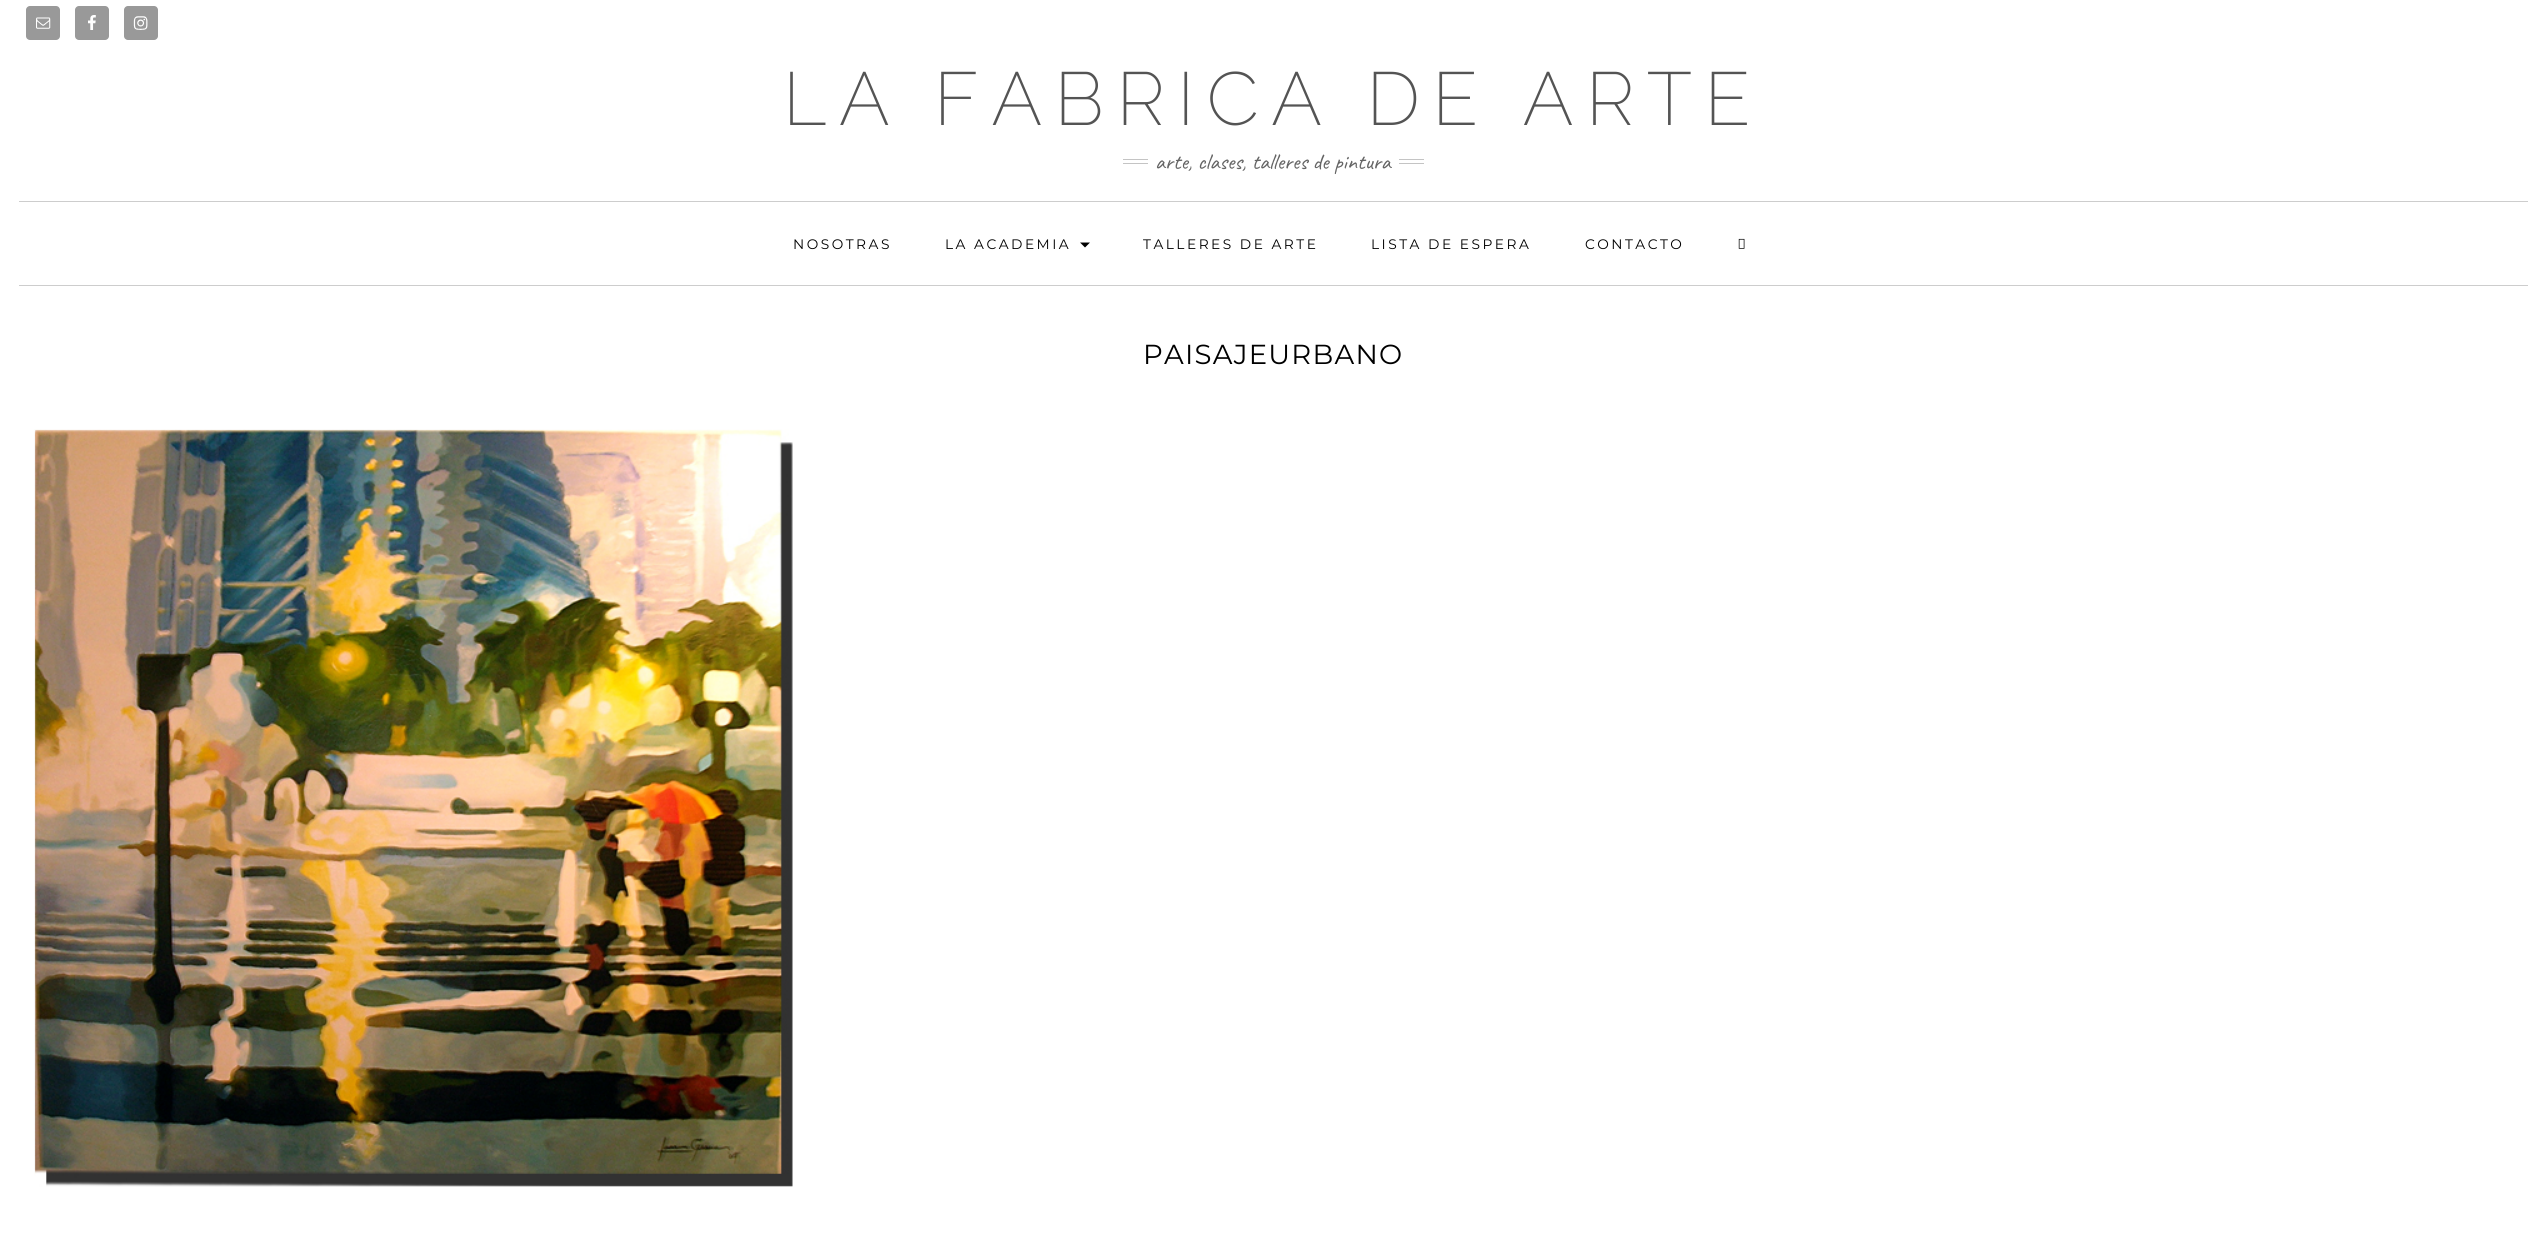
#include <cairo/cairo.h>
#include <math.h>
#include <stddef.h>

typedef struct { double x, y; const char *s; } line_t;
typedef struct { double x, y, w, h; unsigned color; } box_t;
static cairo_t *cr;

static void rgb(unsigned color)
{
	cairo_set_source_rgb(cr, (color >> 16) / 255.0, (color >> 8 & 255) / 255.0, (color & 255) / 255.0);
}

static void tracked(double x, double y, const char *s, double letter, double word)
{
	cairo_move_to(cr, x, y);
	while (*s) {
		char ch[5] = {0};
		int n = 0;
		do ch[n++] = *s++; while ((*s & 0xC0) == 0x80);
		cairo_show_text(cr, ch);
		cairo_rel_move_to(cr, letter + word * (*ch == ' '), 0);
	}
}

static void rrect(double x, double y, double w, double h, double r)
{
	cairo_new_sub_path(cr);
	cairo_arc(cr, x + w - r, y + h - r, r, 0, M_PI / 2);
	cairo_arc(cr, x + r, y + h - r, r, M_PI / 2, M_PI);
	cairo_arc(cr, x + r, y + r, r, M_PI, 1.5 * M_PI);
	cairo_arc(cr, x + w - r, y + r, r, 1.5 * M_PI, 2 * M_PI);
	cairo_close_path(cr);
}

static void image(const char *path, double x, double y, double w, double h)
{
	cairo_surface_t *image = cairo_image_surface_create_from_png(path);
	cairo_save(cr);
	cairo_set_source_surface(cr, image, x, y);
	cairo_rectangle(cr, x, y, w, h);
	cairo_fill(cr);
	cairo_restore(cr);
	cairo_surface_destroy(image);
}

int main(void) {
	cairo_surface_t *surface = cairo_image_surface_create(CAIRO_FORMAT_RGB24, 2546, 1237);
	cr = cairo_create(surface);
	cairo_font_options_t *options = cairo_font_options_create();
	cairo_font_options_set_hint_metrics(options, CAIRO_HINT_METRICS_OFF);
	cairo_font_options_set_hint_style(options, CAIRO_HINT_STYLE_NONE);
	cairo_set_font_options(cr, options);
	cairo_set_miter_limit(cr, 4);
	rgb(0xffffff);
	cairo_paint(cr);
	rgb(0x999999);
	rrect(26, 6, 34, 34, 4);
	cairo_fill(cr);
	image("img/1.png", 36, 17, 15, 12);
	rrect(75, 6, 34, 34, 4);
	cairo_fill(cr);
	image("img/2.png", 88, 15, 8, 15);
	rrect(124, 6, 34, 34, 4);
	cairo_fill(cr);
	image("img/3.png", 133, 16, 15, 14);
	{
		static const box_t items[] = {
			{1123, 159, 25, 1, 0xc4c4c4},
			{1123, 163, 25, 1, 0xc4c4c4},
			{1399, 159, 25, 1, 0xc4c4c4},
			{1399, 163, 25, 1, 0xc4c4c4},
			{19, 201, 2509, 1, 0xcdcdcd},
			{19, 285, 2509, 1, 0xcdcdcd},
		};
		for (size_t i = 0; i < sizeof items / sizeof *items; i++) {
			rgb(items[i].color);
			cairo_rectangle(cr, items[i].x, items[i].y, items[i].w, items[i].h);
			cairo_fill(cr);
		}
	}
	rgb(0x000000);
	cairo_new_path(cr);
	cairo_move_to(cr, 1080, 242.5);
	cairo_line_to(cr, 1090, 242.5);
	cairo_line_to(cr, 1085, 247.5);
	cairo_close_path(cr);
	cairo_fill(cr);
	image("img/4.png", 1738, 238, 7, 11);
	image("img/5.png", 34, 429, 759, 758);
	cairo_select_font_face(cr, "Raleway Thin", CAIRO_FONT_SLANT_NORMAL, CAIRO_FONT_WEIGHT_NORMAL);
	cairo_set_font_size(cr, 75);
	rgb(0x545454);
	tracked(783, 125, "LA FABRICA DE ARTE", 12.5, 0);
	cairo_select_font_face(cr, "Caveat", CAIRO_FONT_SLANT_NORMAL, CAIRO_FONT_WEIGHT_NORMAL);
	cairo_set_font_size(cr, 22.5);
	rgb(0x646464);
	cairo_move_to(cr, 1155, 169);
	cairo_show_text(cr, "arte, clases, talleres de pintura");
	cairo_select_font_face(cr, "Montserrat", CAIRO_FONT_SLANT_NORMAL, CAIRO_FONT_WEIGHT_NORMAL);
	cairo_set_font_size(cr, 13.75);
	rgb(0x000000);
	{
		static const line_t items[] = {
			{793, 249, "NOSOTRAS"},
			{945, 249, "LA ACADEMIA"},
			{1143, 249, "TALLERES DE ARTE"},
			{1371, 249, "LISTA DE ESPERA"},
			{1585, 249, "CONTACTO"},
		};
		for (size_t i = 0; i < sizeof items / sizeof *items; i++) {
			tracked(items[i].x, items[i].y, items[i].s, 2.5, 0);
		}
	}
	cairo_set_font_size(cr, 27.5);
	tracked(1143, 364, "PAISAJEURBANO", 1.25, 0);
	cairo_surface_write_to_png(surface, "page.png");
	cairo_font_options_destroy(options);
	cairo_destroy(cr);
	cairo_surface_destroy(surface);
	return 0;
}
